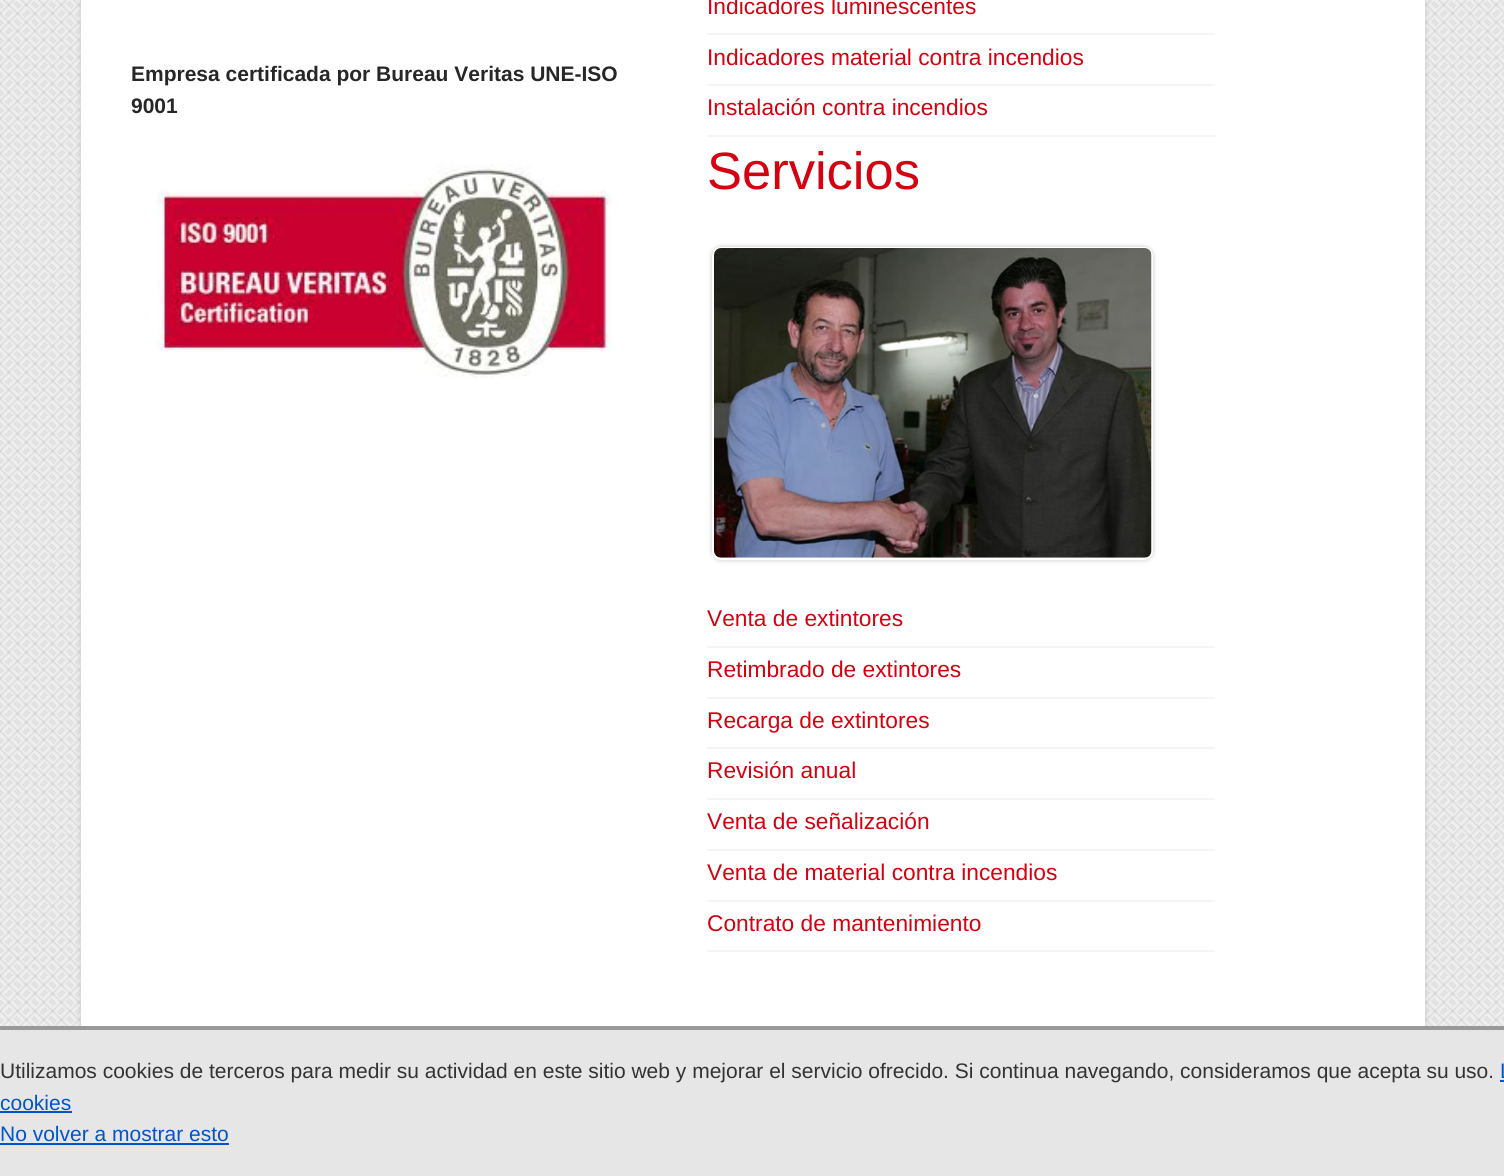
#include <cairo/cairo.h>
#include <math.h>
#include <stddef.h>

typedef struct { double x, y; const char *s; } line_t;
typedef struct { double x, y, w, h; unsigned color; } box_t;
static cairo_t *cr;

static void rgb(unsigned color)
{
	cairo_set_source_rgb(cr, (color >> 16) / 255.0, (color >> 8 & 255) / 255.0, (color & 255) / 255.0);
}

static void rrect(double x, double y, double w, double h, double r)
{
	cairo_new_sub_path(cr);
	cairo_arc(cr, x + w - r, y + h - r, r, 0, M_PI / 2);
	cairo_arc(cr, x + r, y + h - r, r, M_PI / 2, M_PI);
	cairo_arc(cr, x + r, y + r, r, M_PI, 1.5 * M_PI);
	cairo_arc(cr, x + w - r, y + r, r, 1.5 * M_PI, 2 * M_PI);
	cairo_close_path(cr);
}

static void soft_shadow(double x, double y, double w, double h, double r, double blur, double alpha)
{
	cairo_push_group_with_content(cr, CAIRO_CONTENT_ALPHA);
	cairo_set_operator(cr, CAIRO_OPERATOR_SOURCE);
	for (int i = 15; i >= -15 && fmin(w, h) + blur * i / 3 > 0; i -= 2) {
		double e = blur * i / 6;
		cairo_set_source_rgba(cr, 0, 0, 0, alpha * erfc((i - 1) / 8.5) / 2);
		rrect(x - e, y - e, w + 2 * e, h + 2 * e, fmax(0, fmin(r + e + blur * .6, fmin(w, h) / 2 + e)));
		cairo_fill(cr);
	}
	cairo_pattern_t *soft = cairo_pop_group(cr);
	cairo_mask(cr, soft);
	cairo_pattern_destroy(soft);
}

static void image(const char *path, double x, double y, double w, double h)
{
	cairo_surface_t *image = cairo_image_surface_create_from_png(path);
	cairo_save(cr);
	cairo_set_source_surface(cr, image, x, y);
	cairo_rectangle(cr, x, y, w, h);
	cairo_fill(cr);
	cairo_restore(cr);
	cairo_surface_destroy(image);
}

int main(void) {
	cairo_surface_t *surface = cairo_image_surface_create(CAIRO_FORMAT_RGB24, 1504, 1176);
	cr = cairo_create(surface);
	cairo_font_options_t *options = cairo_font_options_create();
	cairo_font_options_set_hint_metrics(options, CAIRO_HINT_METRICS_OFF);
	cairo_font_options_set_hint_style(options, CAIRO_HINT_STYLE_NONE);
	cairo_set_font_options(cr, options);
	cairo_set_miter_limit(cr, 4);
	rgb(0xffffff);
	cairo_paint(cr);
	image("img/1.png", 0, 0, 1504, 1026);
	rgb(0xc7c7c7);
	soft_shadow(81, -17, 1344, 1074, 9, 2.5, 1);
	rgb(0xffffff);
	cairo_rectangle(cr, 81, 0, 1344, 1026);
	cairo_fill(cr);
	image("img/2.png", 157, 164, 455, 214);
	{
		static const box_t items[] = {
			{707, 33, 508, 2, 0xf5f5f5},
			{707, 84, 508, 2, 0xf5f5f5},
			{707, 135, 508, 2, 0xf5f5f5},
		};
		for (size_t i = 0; i < sizeof items / sizeof *items; i++) {
			rgb(items[i].color);
			cairo_rectangle(cr, items[i].x, items[i].y, items[i].w, items[i].h);
			cairo_fill(cr);
		}
	}
	rgb(0xc7c7c7);
	soft_shadow(712, 247, 441, 313, 9, 2.5, 1);
	rgb(0xffffff);
	rrect(713, 248, 439, 311, 8);
	cairo_fill_preserve(cr);
	cairo_stroke(cr);
	image("img/3.png", 714, 248, 438, 310);
	{
		static const box_t items[] = {
			{707, 646, 508, 2, 0xf5f5f5},
			{707, 697, 508, 2, 0xf5f5f5},
			{707, 747, 508, 2, 0xf5f5f5},
			{707, 798, 508, 2, 0xf5f5f5},
			{707, 849, 508, 2, 0xf5f5f5},
			{707, 900, 508, 2, 0xf5f5f5},
			{707, 950, 508, 2, 0xf5f5f5},
			{0, 1030, 1504, 146, 0xe6e6e6},
			{0, 1026, 1504, 4, 0x999999},
			{1500, 1080, 4, 2, 0x0054cc},
			{0, 1111, 72, 2, 0x0054cc},
			{0, 1143, 229, 2, 0x0054cc},
		};
		for (size_t i = 0; i < sizeof items / sizeof *items; i++) {
			rgb(items[i].color);
			cairo_rectangle(cr, items[i].x, items[i].y, items[i].w, items[i].h);
			cairo_fill(cr);
		}
	}
	cairo_select_font_face(cr, "Liberation Sans", CAIRO_FONT_SLANT_NORMAL, CAIRO_FONT_WEIGHT_BOLD);
	cairo_set_font_size(cr, 21);
	rgb(0x272727);
	cairo_move_to(cr, 131, 81);
	cairo_show_text(cr, "Empresa certificada por Bureau Veritas UNE-ISO");
	cairo_move_to(cr, 131, 113);
	cairo_show_text(cr, "9001");
	cairo_select_font_face(cr, "Liberation Sans", CAIRO_FONT_SLANT_NORMAL, CAIRO_FONT_WEIGHT_NORMAL);
	cairo_set_font_size(cr, 22.75);
	rgb(0xd40110);
	{
		static const line_t items[] = {
			{707, 14, "Indicadores luminescentes"},
			{707, 65, "Indicadores material contra incendios"},
			{707, 115, "Instalación contra incendios"},
		};
		for (size_t i = 0; i < sizeof items / sizeof *items; i++) {
			cairo_move_to(cr, items[i].x, items[i].y);
			cairo_show_text(cr, items[i].s);
		}
	}
	cairo_set_font_size(cr, 52.5);
	cairo_move_to(cr, 707, 189);
	cairo_show_text(cr, "Servicios");
	cairo_set_font_size(cr, 22.75);
	{
		static const line_t items[] = {
			{707, 626, "Venta de extintores"},
			{707, 677, "Retimbrado de extintores"},
			{707, 728, "Recarga de extintores"},
			{707, 778, "Revisión anual"},
			{707, 829, "Venta de señalización"},
			{707, 880, "Venta de material contra incendios"},
			{707, 931, "Contrato de mantenimiento"},
		};
		for (size_t i = 0; i < sizeof items / sizeof *items; i++) {
			cairo_move_to(cr, items[i].x, items[i].y);
			cairo_show_text(cr, items[i].s);
		}
	}
	cairo_set_font_size(cr, 21);
	rgb(0x333333);
	cairo_move_to(cr, 0, 1078);
	cairo_show_text(cr, "Utilizamos cookies de terceros para medir su actividad en este sitio web y mejorar el servicio ofrecido. Si continua navegando, consideramos que acepta su uso.");
	rgb(0x0054cc);
	{
		static const line_t items[] = {
			{1500, 1078, "L"},
			{0, 1110, "cookies"},
			{0, 1141, "No volver a mostrar esto"},
		};
		for (size_t i = 0; i < sizeof items / sizeof *items; i++) {
			cairo_move_to(cr, items[i].x, items[i].y);
			cairo_show_text(cr, items[i].s);
		}
	}
	cairo_surface_write_to_png(surface, "page.png");
	cairo_font_options_destroy(options);
	cairo_destroy(cr);
	cairo_surface_destroy(surface);
	return 0;
}
